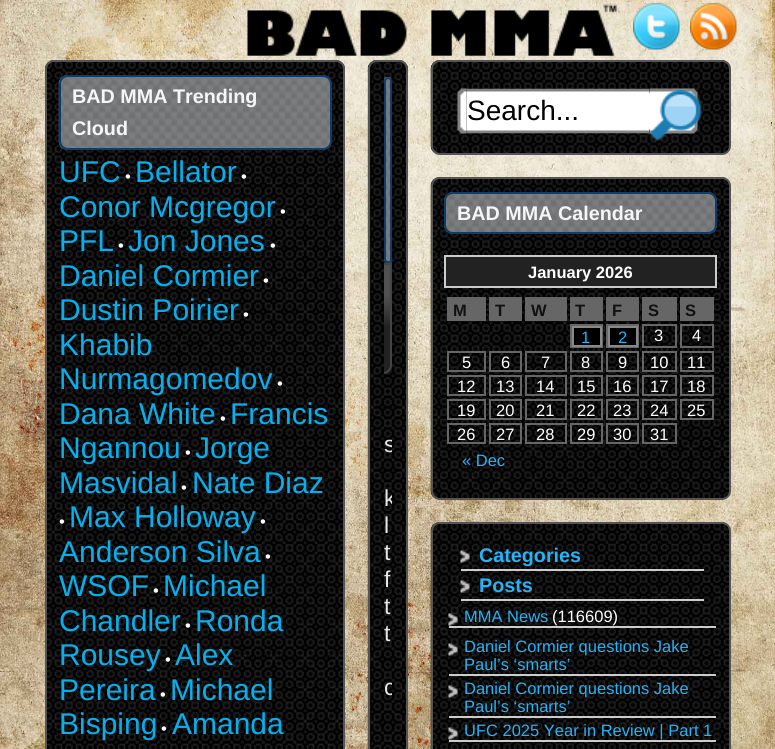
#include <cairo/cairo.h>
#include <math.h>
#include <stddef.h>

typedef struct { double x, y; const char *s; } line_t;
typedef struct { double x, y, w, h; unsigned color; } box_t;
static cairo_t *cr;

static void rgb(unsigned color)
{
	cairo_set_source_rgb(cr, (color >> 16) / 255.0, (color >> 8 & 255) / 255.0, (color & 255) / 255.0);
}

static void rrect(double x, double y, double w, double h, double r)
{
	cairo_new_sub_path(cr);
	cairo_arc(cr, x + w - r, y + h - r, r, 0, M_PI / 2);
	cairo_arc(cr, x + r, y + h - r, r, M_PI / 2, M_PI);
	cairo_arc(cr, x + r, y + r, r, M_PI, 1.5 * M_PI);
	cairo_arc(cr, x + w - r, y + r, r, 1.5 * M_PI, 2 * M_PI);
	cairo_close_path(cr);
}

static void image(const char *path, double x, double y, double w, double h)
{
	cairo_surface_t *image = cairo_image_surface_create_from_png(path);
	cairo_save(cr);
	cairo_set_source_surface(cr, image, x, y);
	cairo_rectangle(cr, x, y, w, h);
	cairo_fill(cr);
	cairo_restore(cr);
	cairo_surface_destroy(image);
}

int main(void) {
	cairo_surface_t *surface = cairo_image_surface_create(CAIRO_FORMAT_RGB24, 775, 749);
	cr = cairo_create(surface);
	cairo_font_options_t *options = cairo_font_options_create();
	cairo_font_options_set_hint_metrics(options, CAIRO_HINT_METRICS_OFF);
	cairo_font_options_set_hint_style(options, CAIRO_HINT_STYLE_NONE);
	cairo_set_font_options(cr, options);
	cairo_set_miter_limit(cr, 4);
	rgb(0xffffff);
	cairo_paint(cr);
	image("img/1.png", 0, 0, 775, 749);
	image("img/2.png", 247, 4, 370, 52);
	image("img/3.png", 633, 3, 47, 47);
	image("img/4.png", 690, 3, 47, 47);
	image("img/5.png", 45, 60, 300, 689);
	rrect(46, 61, 298, 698, 8);
	rgb(0x555555);
	cairo_stroke(cr);
	image("img/6.png", 58, 75, 274, 75);
	rrect(60, 76, 271, 73, 8);
	rgb(0x0b3e6f);
	cairo_stroke(cr);
	image("img/7.png", 367, 60, 41, 689);
	rrect(369, 61, 38, 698, 8);
	rgb(0x555555);
	cairo_stroke(cr);
	image("img/8.png", 384, 76, 8, 187);
	cairo_new_path(cr);
	cairo_move_to(cr, 388, 78);
	cairo_curve_to(cr, 389.5, 78, 391, 79.5, 391, 81);
	cairo_line_to(cr, 391, 262);
	cairo_line_to(cr, 388, 262);
	cairo_curve_to(cr, 386.5, 262, 385, 260.5, 385, 259);
	cairo_line_to(cr, 385, 81);
	cairo_curve_to(cr, 385, 79.5, 386.5, 78, 388, 78);
	cairo_close_path(cr);
	rgb(0x0b3e6f);
	cairo_stroke(cr);
	rgb(0x222222);
	cairo_new_path(cr);
	cairo_move_to(cr, 384, 263);
	cairo_line_to(cr, 392, 263);
	cairo_line_to(cr, 392, 365);
	cairo_curve_to(cr, 392, 370, 388, 374, 383, 374);
	cairo_line_to(cr, 384, 374);
	cairo_close_path(cr);
	cairo_fill(cr);
	image("img/9.png", 384, 262, 8, 63);
	cairo_save(cr);
	cairo_rectangle(cr, 384, 77, 8, 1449);
	cairo_clip(cr);
	rgb(0x444444);
	cairo_new_path(cr);
	cairo_move_to(cr, 369, 374);
	cairo_line_to(cr, 383, 374);
	cairo_curve_to(cr, 388, 374, 392, 370, 392, 365);
	cairo_line_to(cr, 392, 263);
	cairo_line_to(cr, 369, 263);
	cairo_line_to(cr, 369, 265);
	cairo_line_to(cr, 390, 265);
	cairo_line_to(cr, 390, 365);
	cairo_curve_to(cr, 390, 369, 387, 372, 383, 372);
	cairo_line_to(cr, 369, 372);
	cairo_close_path(cr);
	cairo_fill(cr);
	cairo_restore(cr);
	image("img/10.png", 430, 60, 301, 95);
	rrect(432, 61, 298, 93, 8);
	rgb(0x555555);
	cairo_stroke(cr);
	image("img/12.png", 466, 88, 184, 46);
	image("img/11.png", 457, 88, 10, 46);
	rgb(0xffffff);
	cairo_rectangle(cr, 649, 93, 1, 36);
	cairo_fill(cr);
	image("img/13.png", 649, 88, 49, 46);
	image("img/14.png", 649, 88, 53, 53);
	image("img/15.png", 430, 177, 301, 323);
	rrect(432, 178, 298, 321, 8);
	rgb(0x555555);
	cairo_stroke(cr);
	image("img/16.png", 444, 192, 273, 42);
	rrect(445, 193, 271, 40, 8);
	rgb(0x0b3e6f);
	cairo_stroke(cr);
	rgb(0x222222);
	cairo_rectangle(cr, 445, 256, 271, 31);
	cairo_fill_preserve(cr);
	rgb(0xcccccc);
	cairo_stroke(cr);
	{
		static const box_t items[] = {
			{447, 297, 39, 24, 0x666666},
			{489, 297, 33, 24, 0x666666},
			{525, 297, 42, 24, 0x666666},
			{570, 297, 33, 24, 0x666666},
			{606, 297, 33, 24, 0x666666},
			{642, 297, 35, 24, 0x666666},
			{680, 297, 34, 24, 0x666666},
		};
		for (size_t i = 0; i < sizeof items / sizeof *items; i++) {
			rgb(items[i].color);
			cairo_rectangle(cr, items[i].x, items[i].y, items[i].w, items[i].h);
			cairo_fill(cr);
		}
	}
	cairo_rectangle(cr, 571, 325, 31, 22);
	cairo_stroke(cr);
	rgb(0x000000);
	cairo_rectangle(cr, 573, 327, 28, 19);
	cairo_fill_preserve(cr);
	rgb(0x888888);
	cairo_stroke(cr);
	cairo_rectangle(cr, 607, 325, 31, 22);
	rgb(0x666666);
	cairo_stroke(cr);
	rgb(0x000000);
	cairo_rectangle(cr, 609, 327, 28, 19);
	cairo_fill_preserve(cr);
	rgb(0x888888);
	cairo_stroke(cr);
	cairo_rectangle(cr, 643, 325, 33, 22);
	rgb(0x666666);
	cairo_stroke(cr);
	cairo_rectangle(cr, 681, 325, 32, 22);
	cairo_stroke(cr);
	cairo_rectangle(cr, 448, 352, 37, 19);
	cairo_stroke(cr);
	cairo_rectangle(cr, 490, 352, 31, 19);
	cairo_stroke(cr);
	cairo_rectangle(cr, 526, 352, 40, 19);
	cairo_stroke(cr);
	cairo_rectangle(cr, 571, 352, 31, 19);
	cairo_stroke(cr);
	cairo_rectangle(cr, 607, 352, 31, 19);
	cairo_stroke(cr);
	cairo_rectangle(cr, 643, 352, 33, 19);
	cairo_stroke(cr);
	cairo_rectangle(cr, 681, 352, 32, 19);
	cairo_stroke(cr);
	cairo_rectangle(cr, 448, 376, 37, 19);
	cairo_stroke(cr);
	cairo_rectangle(cr, 490, 376, 31, 19);
	cairo_stroke(cr);
	cairo_rectangle(cr, 526, 376, 40, 19);
	cairo_stroke(cr);
	cairo_rectangle(cr, 571, 376, 31, 19);
	cairo_stroke(cr);
	cairo_rectangle(cr, 607, 376, 31, 19);
	cairo_stroke(cr);
	cairo_rectangle(cr, 643, 376, 33, 19);
	cairo_stroke(cr);
	cairo_rectangle(cr, 681, 376, 32, 19);
	cairo_stroke(cr);
	cairo_rectangle(cr, 448, 400, 37, 19);
	cairo_stroke(cr);
	cairo_rectangle(cr, 490, 400, 31, 19);
	cairo_stroke(cr);
	cairo_rectangle(cr, 526, 400, 40, 19);
	cairo_stroke(cr);
	cairo_rectangle(cr, 571, 400, 31, 19);
	cairo_stroke(cr);
	cairo_rectangle(cr, 607, 400, 31, 19);
	cairo_stroke(cr);
	cairo_rectangle(cr, 643, 400, 33, 19);
	cairo_stroke(cr);
	cairo_rectangle(cr, 681, 400, 32, 19);
	cairo_stroke(cr);
	cairo_rectangle(cr, 448, 424, 37, 19);
	cairo_stroke(cr);
	cairo_rectangle(cr, 490, 424, 31, 19);
	cairo_stroke(cr);
	cairo_rectangle(cr, 526, 424, 40, 19);
	cairo_stroke(cr);
	cairo_rectangle(cr, 571, 424, 31, 19);
	cairo_stroke(cr);
	cairo_rectangle(cr, 607, 424, 31, 19);
	cairo_stroke(cr);
	cairo_rectangle(cr, 643, 424, 33, 19);
	cairo_stroke(cr);
	image("img/17.png", 430, 522, 301, 227);
	rrect(432, 523, 298, 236, 8);
	rgb(0x555555);
	cairo_stroke(cr);
	image("img/18.png", 460, 550, 10, 13);
	rgb(0xcccccc);
	cairo_rectangle(cr, 461, 569, 243, 2);
	cairo_fill(cr);
	image("img/19.png", 460, 580, 10, 13);
	cairo_rectangle(cr, 461, 599, 243, 2);
	cairo_fill(cr);
	image("img/20.png", 448, 613, 10, 13);
	cairo_rectangle(cr, 449, 626, 267, 2);
	cairo_fill(cr);
	image("img/21.png", 448, 643, 10, 13);
	cairo_rectangle(cr, 449, 674, 267, 2);
	cairo_fill(cr);
	image("img/22.png", 448, 685, 10, 13);
	cairo_rectangle(cr, 449, 716, 267, 2);
	cairo_fill(cr);
	image("img/23.png", 448, 727, 10, 13);
	cairo_rectangle(cr, 449, 740, 267, 2);
	cairo_fill(cr);
	cairo_select_font_face(cr, "Liberation Sans", CAIRO_FONT_SLANT_NORMAL, CAIRO_FONT_WEIGHT_BOLD);
	cairo_set_font_size(cr, 19.75);
	rgb(0xf6f6f6);
	cairo_move_to(cr, 72, 103);
	cairo_show_text(cr, "BAD MMA Trending");
	cairo_move_to(cr, 72, 135);
	cairo_show_text(cr, "Cloud");
	cairo_select_font_face(cr, "Liberation Sans", CAIRO_FONT_SLANT_NORMAL, CAIRO_FONT_WEIGHT_NORMAL);
	cairo_set_font_size(cr, 30);
	rgb(0x05b0ee);
	cairo_move_to(cr, 59, 182);
	cairo_show_text(cr, "UFC");
	cairo_set_font_size(cr, 16.5);
	rgb(0xffffff);
	cairo_move_to(cr, 125, 182);
	cairo_show_text(cr, "•");
	cairo_set_font_size(cr, 30);
	rgb(0x05b0ee);
	cairo_move_to(cr, 135, 182);
	cairo_show_text(cr, "Bellator");
	cairo_set_font_size(cr, 16.5);
	rgb(0xffffff);
	cairo_move_to(cr, 241, 182);
	cairo_show_text(cr, "•");
	cairo_set_font_size(cr, 30);
	rgb(0x05b0ee);
	cairo_move_to(cr, 59, 217);
	cairo_show_text(cr, "Conor Mcgregor");
	cairo_set_font_size(cr, 16.5);
	rgb(0xffffff);
	cairo_move_to(cr, 280, 217);
	cairo_show_text(cr, "•");
	cairo_set_font_size(cr, 30);
	rgb(0x05b0ee);
	cairo_move_to(cr, 59, 251);
	cairo_show_text(cr, "PFL");
	cairo_set_font_size(cr, 16.5);
	rgb(0xffffff);
	cairo_move_to(cr, 118, 251);
	cairo_show_text(cr, "•");
	cairo_set_font_size(cr, 30);
	rgb(0x05b0ee);
	cairo_move_to(cr, 128, 251);
	cairo_show_text(cr, "Jon Jones");
	cairo_set_font_size(cr, 16.5);
	rgb(0xffffff);
	cairo_move_to(cr, 270, 251);
	cairo_show_text(cr, "•");
	cairo_set_font_size(cr, 30);
	rgb(0x05b0ee);
	cairo_move_to(cr, 59, 286);
	cairo_show_text(cr, "Daniel Cormier");
	cairo_set_font_size(cr, 16.5);
	rgb(0xffffff);
	cairo_move_to(cr, 263, 286);
	cairo_show_text(cr, "•");
	cairo_set_font_size(cr, 30);
	rgb(0x05b0ee);
	cairo_move_to(cr, 59, 320);
	cairo_show_text(cr, "Dustin Poirier");
	cairo_set_font_size(cr, 16.5);
	rgb(0xffffff);
	cairo_move_to(cr, 243, 320);
	cairo_show_text(cr, "•");
	cairo_set_font_size(cr, 30);
	rgb(0x05b0ee);
	cairo_move_to(cr, 59, 355);
	cairo_show_text(cr, "Khabib");
	cairo_move_to(cr, 59, 389);
	cairo_show_text(cr, "Nurmagomedov");
	cairo_set_font_size(cr, 16.5);
	rgb(0xffffff);
	cairo_move_to(cr, 277, 389);
	cairo_show_text(cr, "•");
	cairo_set_font_size(cr, 30);
	rgb(0x05b0ee);
	cairo_move_to(cr, 59, 424);
	cairo_show_text(cr, "Dana White");
	cairo_set_font_size(cr, 16.5);
	rgb(0xffffff);
	cairo_move_to(cr, 220, 424);
	cairo_show_text(cr, "•");
	cairo_set_font_size(cr, 30);
	rgb(0x05b0ee);
	cairo_move_to(cr, 230, 424);
	cairo_show_text(cr, "Francis");
	cairo_move_to(cr, 59, 458);
	cairo_show_text(cr, "Ngannou");
	cairo_set_font_size(cr, 16.5);
	rgb(0xffffff);
	cairo_move_to(cr, 185, 458);
	cairo_show_text(cr, "•");
	cairo_set_font_size(cr, 30);
	rgb(0x05b0ee);
	cairo_move_to(cr, 195, 458);
	cairo_show_text(cr, "Jorge");
	cairo_move_to(cr, 59, 493);
	cairo_show_text(cr, "Masvidal");
	cairo_set_font_size(cr, 16.5);
	rgb(0xffffff);
	cairo_move_to(cr, 181, 493);
	cairo_show_text(cr, "•");
	cairo_set_font_size(cr, 30);
	rgb(0x05b0ee);
	cairo_move_to(cr, 192, 493);
	cairo_show_text(cr, "Nate Diaz");
	cairo_set_font_size(cr, 16.5);
	rgb(0xffffff);
	cairo_move_to(cr, 59, 527);
	cairo_show_text(cr, "•");
	cairo_set_font_size(cr, 30);
	rgb(0x05b0ee);
	cairo_move_to(cr, 69, 527);
	cairo_show_text(cr, "Max Holloway");
	cairo_set_font_size(cr, 16.5);
	rgb(0xffffff);
	cairo_move_to(cr, 260, 527);
	cairo_show_text(cr, "•");
	cairo_set_font_size(cr, 30);
	rgb(0x05b0ee);
	cairo_move_to(cr, 59, 562);
	cairo_show_text(cr, "Anderson Silva");
	cairo_set_font_size(cr, 16.5);
	rgb(0xffffff);
	cairo_move_to(cr, 265, 562);
	cairo_show_text(cr, "•");
	cairo_set_font_size(cr, 30);
	rgb(0x05b0ee);
	cairo_move_to(cr, 59, 596);
	cairo_show_text(cr, "WSOF");
	cairo_set_font_size(cr, 16.5);
	rgb(0xffffff);
	cairo_move_to(cr, 153, 596);
	cairo_show_text(cr, "•");
	cairo_set_font_size(cr, 30);
	rgb(0x05b0ee);
	cairo_move_to(cr, 163, 596);
	cairo_show_text(cr, "Michael");
	cairo_move_to(cr, 59, 631);
	cairo_show_text(cr, "Chandler");
	cairo_set_font_size(cr, 16.5);
	rgb(0xffffff);
	cairo_move_to(cr, 185, 631);
	cairo_show_text(cr, "•");
	cairo_set_font_size(cr, 30);
	rgb(0x05b0ee);
	cairo_move_to(cr, 195, 631);
	cairo_show_text(cr, "Ronda");
	cairo_move_to(cr, 59, 665);
	cairo_show_text(cr, "Rousey");
	cairo_set_font_size(cr, 16.5);
	rgb(0xffffff);
	cairo_move_to(cr, 165, 665);
	cairo_show_text(cr, "•");
	cairo_set_font_size(cr, 30);
	rgb(0x05b0ee);
	cairo_move_to(cr, 175, 665);
	cairo_show_text(cr, "Alex");
	cairo_move_to(cr, 59, 700);
	cairo_show_text(cr, "Pereira");
	cairo_set_font_size(cr, 16.5);
	rgb(0xffffff);
	cairo_move_to(cr, 160, 700);
	cairo_show_text(cr, "•");
	cairo_set_font_size(cr, 30);
	rgb(0x05b0ee);
	cairo_move_to(cr, 170, 700);
	cairo_show_text(cr, "Michael");
	cairo_move_to(cr, 59, 734);
	cairo_show_text(cr, "Bisping");
	cairo_set_font_size(cr, 16.5);
	rgb(0xffffff);
	cairo_move_to(cr, 161, 734);
	cairo_show_text(cr, "•");
	cairo_set_font_size(cr, 30);
	rgb(0x05b0ee);
	cairo_move_to(cr, 172, 734);
	cairo_show_text(cr, "Amanda");
	cairo_save(cr);
	cairo_rectangle(cr, 384, 77, 8, 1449);
	cairo_clip(cr);
	cairo_set_font_size(cr, 23);
	rgb(0xe7e7e7);
	cairo_move_to(cr, 384, 452);
	cairo_show_text(cr, "s");
	cairo_move_to(cr, 384, 506);
	cairo_show_text(cr, "k");
	cairo_restore(cr);
	cairo_set_font_size(cr, 23);
	rgb(0xe7e7e7);
	{
		static const line_t items[] = {
			{384, 533, "l"},
			{384, 560, "t"},
			{384, 587, "f"},
			{384, 614, "t"},
			{384, 641, "t"},
		};
		for (size_t i = 0; i < sizeof items / sizeof *items; i++) {
			cairo_move_to(cr, items[i].x, items[i].y);
			cairo_show_text(cr, items[i].s);
		}
	}
	cairo_save(cr);
	cairo_rectangle(cr, 384, 77, 8, 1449);
	cairo_clip(cr);
	cairo_move_to(cr, 384, 695);
	cairo_show_text(cr, "c");
	cairo_restore(cr);
	cairo_set_font_size(cr, 28);
	rgb(0x000000);
	cairo_move_to(cr, 467, 120);
	cairo_show_text(cr, "Search...");
	cairo_select_font_face(cr, "Liberation Sans", CAIRO_FONT_SLANT_NORMAL, CAIRO_FONT_WEIGHT_BOLD);
	cairo_set_font_size(cr, 19.75);
	rgb(0xf6f6f6);
	cairo_move_to(cr, 457, 220);
	cairo_show_text(cr, "BAD MMA Calendar");
	cairo_set_font_size(cr, 16.5);
	rgb(0xffffff);
	cairo_move_to(cr, 528, 278);
	cairo_show_text(cr, "January 2026");
	rgb(0x111111);
	{
		static const line_t items[] = {
			{453, 316, "M"},
			{495, 316, "T"},
			{531, 316, "W"},
			{575, 316, "T"},
			{612, 316, "F"},
			{648, 316, "S"},
			{685, 316, "S"},
		};
		for (size_t i = 0; i < sizeof items / sizeof *items; i++) {
			cairo_move_to(cr, items[i].x, items[i].y);
			cairo_show_text(cr, items[i].s);
		}
	}
	cairo_select_font_face(cr, "Liberation Sans", CAIRO_FONT_SLANT_NORMAL, CAIRO_FONT_WEIGHT_NORMAL);
	rgb(0x26b3f7);
	cairo_move_to(cr, 581, 343);
	cairo_show_text(cr, "1");
	cairo_move_to(cr, 618, 343);
	cairo_show_text(cr, "2");
	rgb(0xffffff);
	{
		static const line_t items[] = {
			{654, 341, "3"},
			{692, 341, "4"},
			{462, 368, "5"},
			{501, 368, "6"},
			{541, 368, "7"},
			{581, 368, "8"},
			{618, 368, "9"},
			{650, 368, "10"},
			{687, 368, "11"},
			{457, 392, "12"},
			{496, 392, "13"},
			{536, 392, "14"},
			{577, 392, "15"},
			{613, 392, "16"},
			{650, 392, "17"},
			{687, 392, "18"},
			{457, 416, "19"},
			{496, 416, "20"},
			{536, 416, "21"},
			{577, 416, "22"},
			{613, 416, "23"},
			{650, 416, "24"},
			{687, 416, "25"},
			{457, 440, "26"},
			{496, 440, "27"},
			{536, 440, "28"},
			{577, 440, "29"},
			{613, 440, "30"},
			{650, 440, "31"},
		};
		for (size_t i = 0; i < sizeof items / sizeof *items; i++) {
			cairo_move_to(cr, items[i].x, items[i].y);
			cairo_show_text(cr, items[i].s);
		}
	}
	rgb(0x26b3f7);
	cairo_move_to(cr, 462, 466);
	cairo_show_text(cr, "« Dec");
	cairo_select_font_face(cr, "Liberation Sans", CAIRO_FONT_SLANT_NORMAL, CAIRO_FONT_WEIGHT_BOLD);
	cairo_set_font_size(cr, 19.75);
	cairo_move_to(cr, 479, 562);
	cairo_show_text(cr, "Categories");
	cairo_move_to(cr, 479, 592);
	cairo_show_text(cr, "Posts");
	cairo_select_font_face(cr, "Liberation Sans", CAIRO_FONT_SLANT_NORMAL, CAIRO_FONT_WEIGHT_NORMAL);
	cairo_set_font_size(cr, 16.5);
	cairo_move_to(cr, 464, 622);
	cairo_show_text(cr, "MMA News");
	rgb(0xffffff);
	cairo_move_to(cr, 552, 622);
	cairo_show_text(cr, "(116609)");
	rgb(0x26b3f7);
	{
		static const line_t items[] = {
			{464, 652, "Daniel Cormier questions Jake"},
			{464, 670, "Paul’s ‘smarts’"},
			{464, 694, "Daniel Cormier questions Jake"},
			{464, 712, "Paul’s ‘smarts’"},
			{464, 736, "UFC 2025 Year in Review | Part 1"},
		};
		for (size_t i = 0; i < sizeof items / sizeof *items; i++) {
			cairo_move_to(cr, items[i].x, items[i].y);
			cairo_show_text(cr, items[i].s);
		}
	}
	cairo_surface_write_to_png(surface, "page.png");
	cairo_font_options_destroy(options);
	cairo_destroy(cr);
	cairo_surface_destroy(surface);
	return 0;
}
